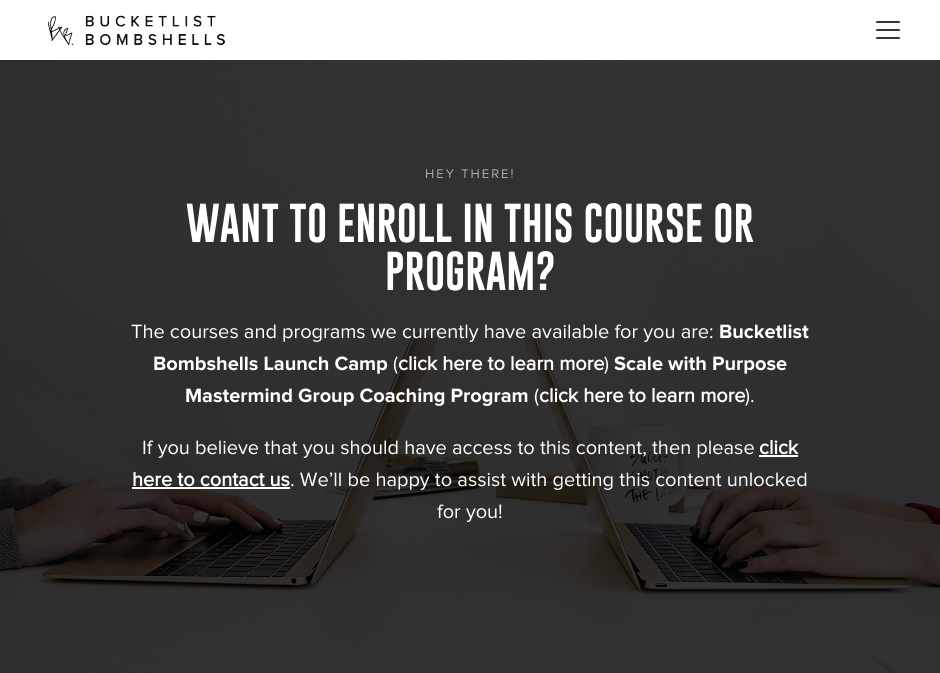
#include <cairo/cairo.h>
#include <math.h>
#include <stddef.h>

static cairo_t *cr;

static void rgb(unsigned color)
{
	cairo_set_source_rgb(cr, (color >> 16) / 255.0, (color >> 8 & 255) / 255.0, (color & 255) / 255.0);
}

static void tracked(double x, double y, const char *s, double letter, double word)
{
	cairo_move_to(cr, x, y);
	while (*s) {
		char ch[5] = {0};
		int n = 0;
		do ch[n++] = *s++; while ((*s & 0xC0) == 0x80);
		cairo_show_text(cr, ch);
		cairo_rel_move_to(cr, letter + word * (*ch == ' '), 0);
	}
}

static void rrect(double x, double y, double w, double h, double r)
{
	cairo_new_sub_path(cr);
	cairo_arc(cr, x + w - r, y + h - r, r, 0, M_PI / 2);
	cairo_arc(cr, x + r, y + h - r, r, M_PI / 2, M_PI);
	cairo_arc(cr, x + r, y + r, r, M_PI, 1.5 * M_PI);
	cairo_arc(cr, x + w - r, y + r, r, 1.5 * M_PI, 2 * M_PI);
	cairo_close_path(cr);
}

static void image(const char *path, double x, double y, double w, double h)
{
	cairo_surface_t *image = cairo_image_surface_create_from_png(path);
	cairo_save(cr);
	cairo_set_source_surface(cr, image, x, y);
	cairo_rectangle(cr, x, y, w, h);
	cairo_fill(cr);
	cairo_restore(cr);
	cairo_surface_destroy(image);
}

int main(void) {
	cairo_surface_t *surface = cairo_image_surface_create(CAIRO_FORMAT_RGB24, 940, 673);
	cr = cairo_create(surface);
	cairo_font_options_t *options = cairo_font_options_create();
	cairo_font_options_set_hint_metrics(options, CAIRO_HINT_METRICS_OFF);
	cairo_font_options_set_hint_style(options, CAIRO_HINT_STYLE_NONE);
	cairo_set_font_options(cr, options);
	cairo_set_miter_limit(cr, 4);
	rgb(0xffffff);
	cairo_paint(cr);
	image("img/1.png", 48, 15, 177, 31);
	rgb(0x343434);
	rrect(876, 29, 24, 2, 1);
	cairo_fill(cr);
	rrect(876, 21, 24, 2, 1);
	cairo_fill(cr);
	rrect(876, 37, 24, 2, 1);
	cairo_fill(cr);
	image("img/2.png", 0, 60, 940, 613);
	rgb(0xffffff);
	cairo_rectangle(cr, 759, 455, 39, 2);
	cairo_fill(cr);
	cairo_rectangle(cr, 132, 487, 158, 2);
	cairo_fill(cr);
	cairo_select_font_face(cr, "Proxima Nova", CAIRO_FONT_SLANT_NORMAL, CAIRO_FONT_WEIGHT_NORMAL);
	cairo_set_font_size(cr, 13);
	rgb(0xadadad);
	tracked(425, 178, "HEY THERE!", 2, 0);
	cairo_select_font_face(cr, "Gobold", CAIRO_FONT_SLANT_NORMAL, CAIRO_FONT_WEIGHT_BOLD);
	cairo_set_font_size(cr, 40);
	rgb(0xffffff);
	cairo_move_to(cr, 186, 242);
	cairo_show_text(cr, "WANT TO ENROLL IN THIS COURSE OR");
	cairo_move_to(cr, 385, 290);
	cairo_show_text(cr, "PROGRAM?");
	cairo_select_font_face(cr, "Proxima Nova", CAIRO_FONT_SLANT_NORMAL, CAIRO_FONT_WEIGHT_NORMAL);
	cairo_set_font_size(cr, 20);
	cairo_move_to(cr, 131, 338);
	cairo_show_text(cr, "The courses and programs we currently have available for you are:");
	cairo_select_font_face(cr, "Proxima Nova", CAIRO_FONT_SLANT_NORMAL, CAIRO_FONT_WEIGHT_BOLD);
	cairo_move_to(cr, 719, 338);
	cairo_show_text(cr, "Bucketlist");
	cairo_move_to(cr, 153, 370);
	cairo_show_text(cr, "Bombshells Launch Camp");
	cairo_select_font_face(cr, "Proxima Nova", CAIRO_FONT_SLANT_NORMAL, CAIRO_FONT_WEIGHT_NORMAL);
	cairo_move_to(cr, 393, 370);
	cairo_show_text(cr, "(");
	cairo_select_font_face(cr, "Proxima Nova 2", CAIRO_FONT_SLANT_NORMAL, CAIRO_FONT_WEIGHT_BOLD);
	cairo_move_to(cr, 398, 370);
	cairo_show_text(cr, "click here to learn more");
	cairo_select_font_face(cr, "Proxima Nova", CAIRO_FONT_SLANT_NORMAL, CAIRO_FONT_WEIGHT_NORMAL);
	cairo_move_to(cr, 604, 370);
	cairo_show_text(cr, ")");
	cairo_select_font_face(cr, "Proxima Nova", CAIRO_FONT_SLANT_NORMAL, CAIRO_FONT_WEIGHT_BOLD);
	cairo_move_to(cr, 614, 370);
	cairo_show_text(cr, "Scale with Purpose");
	cairo_move_to(cr, 185, 402);
	cairo_show_text(cr, "Mastermind Group Coaching Program");
	cairo_select_font_face(cr, "Proxima Nova", CAIRO_FONT_SLANT_NORMAL, CAIRO_FONT_WEIGHT_NORMAL);
	cairo_move_to(cr, 534, 402);
	cairo_show_text(cr, "(");
	cairo_select_font_face(cr, "Proxima Nova 2", CAIRO_FONT_SLANT_NORMAL, CAIRO_FONT_WEIGHT_BOLD);
	cairo_move_to(cr, 539, 402);
	cairo_show_text(cr, "click here to learn more");
	cairo_select_font_face(cr, "Proxima Nova", CAIRO_FONT_SLANT_NORMAL, CAIRO_FONT_WEIGHT_NORMAL);
	cairo_move_to(cr, 745, 402);
	cairo_show_text(cr, ").");
	cairo_move_to(cr, 142, 454);
	cairo_show_text(cr, "If you believe that you should have access to this content, then please");
	cairo_select_font_face(cr, "Proxima Nova 2", CAIRO_FONT_SLANT_NORMAL, CAIRO_FONT_WEIGHT_BOLD);
	cairo_move_to(cr, 759, 454);
	cairo_show_text(cr, "click");
	cairo_move_to(cr, 132, 486);
	cairo_show_text(cr, "here to contact us");
	cairo_select_font_face(cr, "Proxima Nova", CAIRO_FONT_SLANT_NORMAL, CAIRO_FONT_WEIGHT_NORMAL);
	cairo_move_to(cr, 290, 486);
	cairo_show_text(cr, ". We’ll be happy to assist with getting this content unlocked");
	cairo_move_to(cr, 437, 518);
	cairo_show_text(cr, "for you!");
	cairo_surface_write_to_png(surface, "page.png");
	cairo_font_options_destroy(options);
	cairo_destroy(cr);
	cairo_surface_destroy(surface);
	return 0;
}
